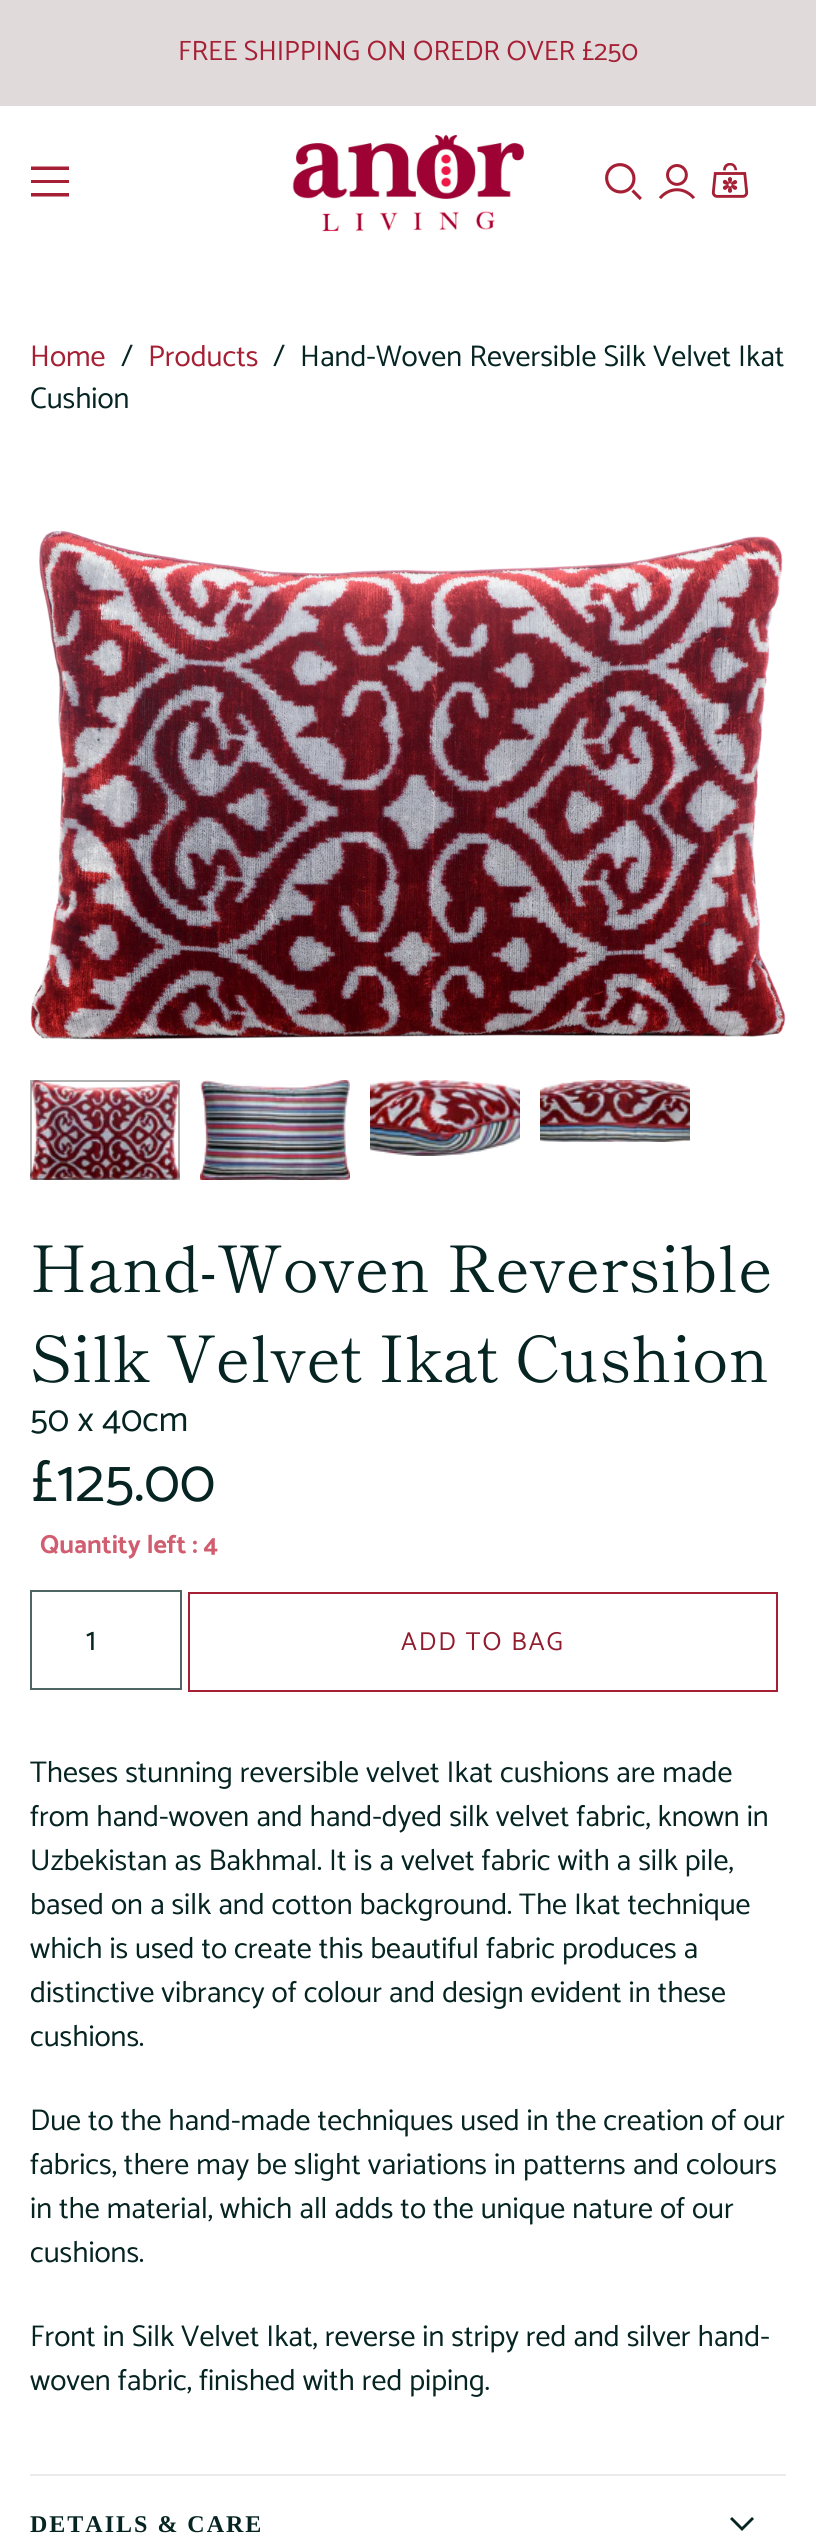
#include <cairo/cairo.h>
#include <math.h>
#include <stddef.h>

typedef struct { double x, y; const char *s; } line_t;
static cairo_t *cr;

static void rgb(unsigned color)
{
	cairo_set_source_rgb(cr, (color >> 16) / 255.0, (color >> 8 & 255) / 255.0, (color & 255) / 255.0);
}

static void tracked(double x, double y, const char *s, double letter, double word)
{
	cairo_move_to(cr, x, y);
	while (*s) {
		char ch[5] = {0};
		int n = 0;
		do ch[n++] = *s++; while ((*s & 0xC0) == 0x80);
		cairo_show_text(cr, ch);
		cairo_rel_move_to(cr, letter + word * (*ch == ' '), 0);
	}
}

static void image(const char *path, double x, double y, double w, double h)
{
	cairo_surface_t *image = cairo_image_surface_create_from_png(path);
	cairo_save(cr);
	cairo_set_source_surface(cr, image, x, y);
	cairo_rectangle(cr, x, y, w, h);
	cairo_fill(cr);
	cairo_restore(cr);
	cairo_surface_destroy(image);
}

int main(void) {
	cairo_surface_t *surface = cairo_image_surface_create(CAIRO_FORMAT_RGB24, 816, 2535);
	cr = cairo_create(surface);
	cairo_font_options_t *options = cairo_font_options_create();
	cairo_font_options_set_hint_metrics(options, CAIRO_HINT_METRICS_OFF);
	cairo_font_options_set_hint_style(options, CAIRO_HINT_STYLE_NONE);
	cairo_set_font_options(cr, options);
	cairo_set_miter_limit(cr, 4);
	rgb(0xffffff);
	cairo_paint(cr);
	rgb(0xe0dadb);
	cairo_rectangle(cr, 0, 0, 816, 106);
	cairo_fill(cr);
	image("img/1.png", 292, 134, 233, 98);
	rgb(0xa62035);
	cairo_set_fill_rule(cr, CAIRO_FILL_RULE_EVEN_ODD);
	cairo_new_path(cr);
	cairo_move_to(cr, 69, 170);
	cairo_line_to(cr, 31, 170);
	cairo_line_to(cr, 31, 166.5);
	cairo_line_to(cr, 69, 166.5);
	cairo_close_path(cr);
	cairo_move_to(cr, 69, 183);
	cairo_line_to(cr, 31, 183);
	cairo_line_to(cr, 31, 180);
	cairo_line_to(cr, 69, 180);
	cairo_close_path(cr);
	cairo_move_to(cr, 31, 196.5);
	cairo_line_to(cr, 69, 196.5);
	cairo_line_to(cr, 69, 193);
	cairo_line_to(cr, 31, 193);
	cairo_close_path(cr);
	cairo_fill(cr);
	image("img/2.png", 605, 163, 37, 37);
	image("img/3.png", 658, 164, 37, 35);
	image("img/4.png", 711, 163, 38, 35);
	image("img/5.png", 30, 530, 756, 510);
	image("img/6.png", 30, 1080, 150, 100);
	cairo_rectangle(cr, 31, 1081, 148, 98);
	cairo_set_source_rgba(cr, 0, 0, 0, 0.3);
	cairo_stroke(cr);
	image("img/7.png", 200, 1080, 150, 100);
	image("img/8.png", 370, 1080, 150, 76);
	image("img/9.png", 540, 1080, 150, 62);
	cairo_rectangle(cr, 31, 1591, 150, 98);
	rgb(0x506664);
	cairo_stroke(cr);
	cairo_rectangle(cr, 189, 1593, 588, 98);
	rgb(0xa62035);
	cairo_stroke(cr);
	rgb(0xebebeb);
	cairo_rectangle(cr, 30, 2474, 756, 2);
	cairo_fill(cr);
	rgb(0x052422);
	cairo_set_fill_rule(cr, CAIRO_FILL_RULE_WINDING);
	cairo_new_path(cr);
	cairo_move_to(cr, 730, 2519);
	cairo_line_to(cr, 732, 2517);
	cairo_line_to(cr, 742, 2527);
	cairo_line_to(cr, 752, 2517);
	cairo_line_to(cr, 754, 2519);
	cairo_line_to(cr, 742, 2531);
	cairo_close_path(cr);
	cairo_fill(cr);
	cairo_select_font_face(cr, "Catamaran Thin", CAIRO_FONT_SLANT_NORMAL, CAIRO_FONT_WEIGHT_NORMAL);
	cairo_set_font_size(cr, 28);
	rgb(0xa62035);
	cairo_move_to(cr, 178, 60);
	cairo_show_text(cr, "FREE SHIPPING ON OREDR OVER £250");
	cairo_set_font_size(cr, 30);
	cairo_move_to(cr, 30, 366);
	cairo_show_text(cr, "Home");
	rgb(0x052422);
	cairo_move_to(cr, 121, 366);
	cairo_show_text(cr, "/");
	rgb(0xa62035);
	cairo_move_to(cr, 148, 366);
	cairo_show_text(cr, "Products");
	rgb(0x052422);
	{
		static const line_t items[] = {
			{273, 366, "/"},
			{300, 366, "Hand-Woven Reversible Silk Velvet Ikat"},
			{30, 408, "Cushion"},
		};
		for (size_t i = 0; i < sizeof items / sizeof *items; i++) {
			cairo_move_to(cr, items[i].x, items[i].y);
			cairo_show_text(cr, items[i].s);
		}
	}
	cairo_select_font_face(cr, "Shippori Mincho", CAIRO_FONT_SLANT_NORMAL, CAIRO_FONT_WEIGHT_NORMAL);
	cairo_set_font_size(cr, 64);
	cairo_move_to(cr, 30, 1292);
	cairo_show_text(cr, "Hand-Woven Reversible");
	cairo_move_to(cr, 30, 1382);
	cairo_show_text(cr, "Silk Velvet Ikat Cushion");
	cairo_select_font_face(cr, "Catamaran Thin", CAIRO_FONT_SLANT_NORMAL, CAIRO_FONT_WEIGHT_NORMAL);
	cairo_set_font_size(cr, 36);
	cairo_move_to(cr, 30, 1431);
	cairo_show_text(cr, "50 x 40cm");
	cairo_set_font_size(cr, 60);
	cairo_move_to(cr, 30, 1501);
	cairo_show_text(cr, "£125.00");
	cairo_select_font_face(cr, "Catamaran", CAIRO_FONT_SLANT_NORMAL, CAIRO_FONT_WEIGHT_BOLD);
	cairo_set_font_size(cr, 26);
	rgb(0xd05d70);
	cairo_move_to(cr, 40, 1553);
	cairo_show_text(cr, "Quantity left : 4");
	cairo_select_font_face(cr, "Catamaran Thin", CAIRO_FONT_SLANT_NORMAL, CAIRO_FONT_WEIGHT_NORMAL);
	cairo_set_font_size(cr, 32);
	rgb(0x052422);
	cairo_move_to(cr, 86, 1650);
	cairo_show_text(cr, "1");
	cairo_set_font_size(cr, 26);
	rgb(0x901c2e);
	tracked(401, 1650, "ADD TO BAG", 2, 0);
	cairo_set_font_size(cr, 30);
	rgb(0x052422);
	{
		static const line_t items[] = {
			{30, 1782, "Theses stunning reversible velvet Ikat cushions are made"},
			{30, 1826, "from hand-woven and hand-dyed silk velvet fabric, known in"},
			{30, 1870, "Uzbekistan as Bakhmal. It is a velvet fabric with a silk pile,"},
			{30, 1914, "based on a silk and cotton background. The Ikat technique"},
			{30, 1958, "which is used to create this beautiful fabric produces a"},
			{30, 2002, "distinctive vibrancy of colour and design evident in these"},
			{30, 2046, "cushions."},
			{30, 2130, "Due to the hand-made techniques used in the creation of our"},
			{30, 2174, "fabrics, there may be slight variations in patterns and colours"},
			{30, 2218, "in the material, which all adds to the unique nature of our"},
			{30, 2262, "cushions."},
			{30, 2346, "Front in Silk Velvet Ikat, reverse in stripy red and silver hand-"},
			{30, 2390, "woven fabric, finished with red piping."},
		};
		for (size_t i = 0; i < sizeof items / sizeof *items; i++) {
			cairo_move_to(cr, items[i].x, items[i].y);
			cairo_show_text(cr, items[i].s);
		}
	}
	cairo_select_font_face(cr, "Liberation Serif", CAIRO_FONT_SLANT_NORMAL, CAIRO_FONT_WEIGHT_BOLD);
	cairo_set_font_size(cr, 24);
	tracked(30, 2532, "DETAILS & CARE", 2, 0);
	cairo_surface_write_to_png(surface, "page.png");
	cairo_font_options_destroy(options);
	cairo_destroy(cr);
	cairo_surface_destroy(surface);
	return 0;
}
